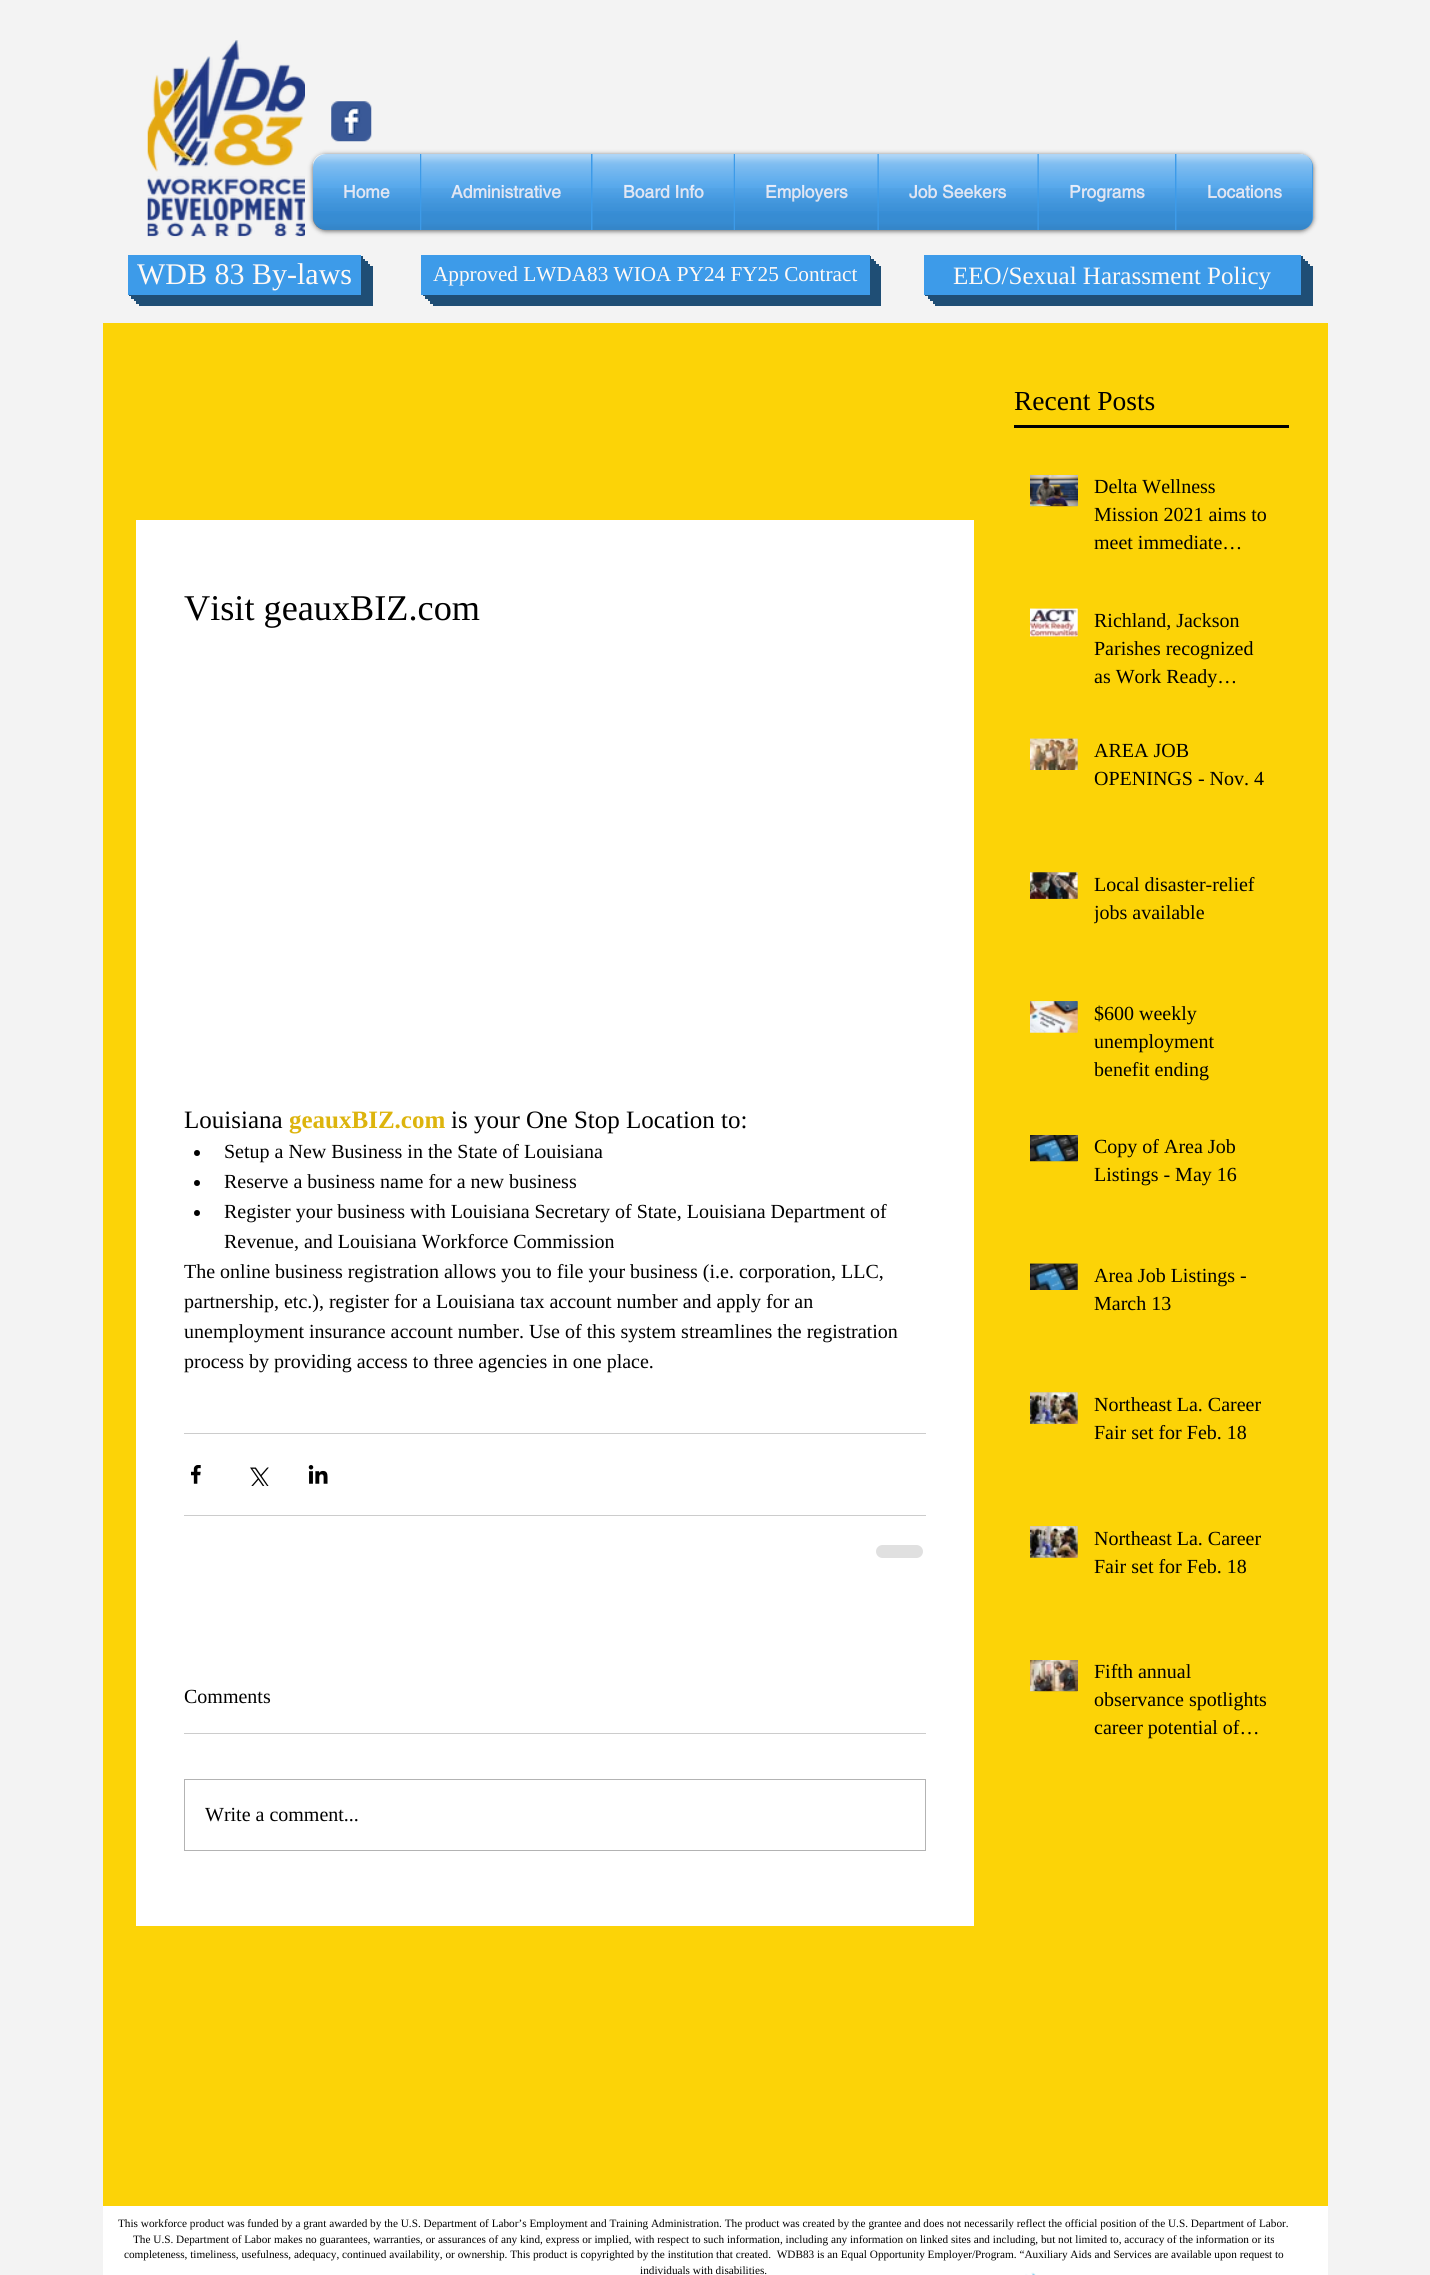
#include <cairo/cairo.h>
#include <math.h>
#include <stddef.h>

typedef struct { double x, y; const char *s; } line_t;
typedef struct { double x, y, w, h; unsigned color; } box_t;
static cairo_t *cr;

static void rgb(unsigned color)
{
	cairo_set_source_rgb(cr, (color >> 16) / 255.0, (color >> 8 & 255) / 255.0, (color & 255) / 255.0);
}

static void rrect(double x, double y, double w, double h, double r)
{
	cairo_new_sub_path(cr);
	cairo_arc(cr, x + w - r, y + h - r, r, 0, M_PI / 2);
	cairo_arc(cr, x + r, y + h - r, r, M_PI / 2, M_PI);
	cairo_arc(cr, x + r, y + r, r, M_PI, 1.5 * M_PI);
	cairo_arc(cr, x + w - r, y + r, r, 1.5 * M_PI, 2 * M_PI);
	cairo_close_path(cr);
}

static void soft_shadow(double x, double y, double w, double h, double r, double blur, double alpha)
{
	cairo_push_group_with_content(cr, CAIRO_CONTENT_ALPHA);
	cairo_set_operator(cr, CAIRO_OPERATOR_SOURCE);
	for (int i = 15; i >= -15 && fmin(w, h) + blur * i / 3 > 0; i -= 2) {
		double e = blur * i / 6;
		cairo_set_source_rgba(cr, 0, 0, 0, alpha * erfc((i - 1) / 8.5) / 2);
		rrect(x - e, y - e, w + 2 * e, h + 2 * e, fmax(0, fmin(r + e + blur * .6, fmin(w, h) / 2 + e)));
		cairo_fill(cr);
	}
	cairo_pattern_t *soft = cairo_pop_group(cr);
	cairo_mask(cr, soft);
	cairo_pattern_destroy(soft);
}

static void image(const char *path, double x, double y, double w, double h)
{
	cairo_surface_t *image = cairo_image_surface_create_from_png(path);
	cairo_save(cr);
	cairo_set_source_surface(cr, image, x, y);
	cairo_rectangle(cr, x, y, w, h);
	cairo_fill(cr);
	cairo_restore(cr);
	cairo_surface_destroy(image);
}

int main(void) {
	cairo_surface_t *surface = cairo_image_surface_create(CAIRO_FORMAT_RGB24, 1430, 2275);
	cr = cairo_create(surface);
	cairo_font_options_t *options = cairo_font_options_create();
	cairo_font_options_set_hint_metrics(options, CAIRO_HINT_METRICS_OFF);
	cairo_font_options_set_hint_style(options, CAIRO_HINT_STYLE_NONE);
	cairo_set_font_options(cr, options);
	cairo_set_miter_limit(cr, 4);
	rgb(0xf3f3f3);
	cairo_paint(cr);
	image("img/1.png", 147, 40, 158, 197);
	image("img/2.png", 331, 101, 41, 41);
	rgb(0x000000);
	soft_shadow(313, 155, 1000, 76, 13, 2.5, 0.6);
	image("img/3.png", 313, 154, 1000, 13);
	image("img/4.png", 313, 217, 996, 13);
	rgb(0x3d9be9);
	cairo_new_path(cr);
	cairo_move_to(cr, 326, 154);
	cairo_line_to(cr, 420, 154);
	cairo_line_to(cr, 420, 230);
	cairo_line_to(cr, 326, 230);
	cairo_curve_to(cr, 319, 230, 313, 224, 313, 217);
	cairo_line_to(cr, 313, 167);
	cairo_curve_to(cr, 313, 160, 319, 154, 326, 154);
	cairo_close_path(cr);
	cairo_fill(cr);
	cairo_rectangle(cr, 420, 154, 755, 76);
	cairo_fill(cr);
	cairo_new_path(cr);
	cairo_move_to(cr, 1175, 154);
	cairo_line_to(cr, 1300, 154);
	cairo_curve_to(cr, 1307, 154, 1313, 160, 1313, 167);
	cairo_line_to(cr, 1313, 217);
	cairo_curve_to(cr, 1313, 224, 1307, 230, 1300, 230);
	cairo_line_to(cr, 1175, 230);
	cairo_close_path(cr);
	cairo_fill(cr);
	rgb(0x1f4e75);
	cairo_new_path(cr);
	cairo_move_to(cr, 139, 295);
	cairo_line_to(cr, 139, 306);
	cairo_line_to(cr, 373, 306);
	cairo_line_to(cr, 373, 266);
	cairo_line_to(cr, 361, 266);
	cairo_line_to(cr, 361, 295);
	cairo_close_path(cr);
	cairo_fill(cr);
	cairo_new_path(cr);
	cairo_move_to(cr, 136, 295);
	cairo_line_to(cr, 136, 304);
	cairo_line_to(cr, 370, 304);
	cairo_line_to(cr, 370, 264);
	cairo_line_to(cr, 361, 264);
	cairo_line_to(cr, 361, 295);
	cairo_close_path(cr);
	cairo_fill(cr);
	cairo_new_path(cr);
	cairo_move_to(cr, 134, 295);
	cairo_line_to(cr, 134, 301);
	cairo_line_to(cr, 368, 301);
	cairo_line_to(cr, 368, 261);
	cairo_line_to(cr, 361, 261);
	cairo_line_to(cr, 361, 295);
	cairo_close_path(cr);
	cairo_fill(cr);
	cairo_new_path(cr);
	cairo_move_to(cr, 131, 295);
	cairo_line_to(cr, 131, 299);
	cairo_line_to(cr, 365, 299);
	cairo_line_to(cr, 365, 259);
	cairo_line_to(cr, 361, 259);
	cairo_line_to(cr, 361, 295);
	cairo_close_path(cr);
	cairo_fill(cr);
	cairo_new_path(cr);
	cairo_move_to(cr, 129, 295);
	cairo_line_to(cr, 129, 296);
	cairo_line_to(cr, 363, 296);
	cairo_line_to(cr, 363, 256);
	cairo_line_to(cr, 361, 256);
	cairo_line_to(cr, 361, 295);
	cairo_close_path(cr);
	cairo_fill(cr);
	rgb(0x3d9be9);
	cairo_rectangle(cr, 128, 255, 233, 40);
	cairo_fill(cr);
	rgb(0x1f4e75);
	cairo_new_path(cr);
	cairo_move_to(cr, 433, 295);
	cairo_line_to(cr, 433, 306);
	cairo_line_to(cr, 881, 306);
	cairo_line_to(cr, 881, 266);
	cairo_line_to(cr, 870, 266);
	cairo_line_to(cr, 870, 295);
	cairo_close_path(cr);
	cairo_fill(cr);
	cairo_new_path(cr);
	cairo_move_to(cr, 430, 295);
	cairo_line_to(cr, 430, 304);
	cairo_line_to(cr, 879, 304);
	cairo_line_to(cr, 879, 264);
	cairo_line_to(cr, 870, 264);
	cairo_line_to(cr, 870, 295);
	cairo_close_path(cr);
	cairo_fill(cr);
	cairo_new_path(cr);
	cairo_move_to(cr, 428, 295);
	cairo_line_to(cr, 428, 301);
	cairo_line_to(cr, 876, 301);
	cairo_line_to(cr, 876, 261);
	cairo_line_to(cr, 870, 261);
	cairo_line_to(cr, 870, 295);
	cairo_close_path(cr);
	cairo_fill(cr);
	cairo_new_path(cr);
	cairo_move_to(cr, 425, 295);
	cairo_line_to(cr, 425, 299);
	cairo_line_to(cr, 874, 299);
	cairo_line_to(cr, 874, 259);
	cairo_line_to(cr, 870, 259);
	cairo_line_to(cr, 870, 295);
	cairo_close_path(cr);
	cairo_fill(cr);
	cairo_new_path(cr);
	cairo_move_to(cr, 423, 295);
	cairo_line_to(cr, 423, 296);
	cairo_line_to(cr, 871, 296);
	cairo_line_to(cr, 871, 256);
	cairo_line_to(cr, 870, 256);
	cairo_line_to(cr, 870, 295);
	cairo_close_path(cr);
	cairo_fill(cr);
	rgb(0x3d9be9);
	cairo_rectangle(cr, 421, 255, 449, 40);
	cairo_fill(cr);
	rgb(0x1f4e75);
	cairo_new_path(cr);
	cairo_move_to(cr, 935, 295);
	cairo_line_to(cr, 935, 306);
	cairo_line_to(cr, 1313, 306);
	cairo_line_to(cr, 1313, 266);
	cairo_line_to(cr, 1301, 266);
	cairo_line_to(cr, 1301, 295);
	cairo_close_path(cr);
	cairo_fill(cr);
	cairo_new_path(cr);
	cairo_move_to(cr, 933, 295);
	cairo_line_to(cr, 933, 304);
	cairo_line_to(cr, 1310, 304);
	cairo_line_to(cr, 1310, 264);
	cairo_line_to(cr, 1301, 264);
	cairo_line_to(cr, 1301, 295);
	cairo_close_path(cr);
	cairo_fill(cr);
	cairo_new_path(cr);
	cairo_move_to(cr, 930, 295);
	cairo_line_to(cr, 930, 301);
	cairo_line_to(cr, 1308, 301);
	cairo_line_to(cr, 1308, 261);
	cairo_line_to(cr, 1301, 261);
	cairo_line_to(cr, 1301, 295);
	cairo_close_path(cr);
	cairo_fill(cr);
	cairo_new_path(cr);
	cairo_move_to(cr, 928, 295);
	cairo_line_to(cr, 928, 299);
	cairo_line_to(cr, 1305, 299);
	cairo_line_to(cr, 1305, 259);
	cairo_line_to(cr, 1301, 259);
	cairo_line_to(cr, 1301, 295);
	cairo_close_path(cr);
	cairo_fill(cr);
	cairo_new_path(cr);
	cairo_move_to(cr, 925, 295);
	cairo_line_to(cr, 925, 296);
	cairo_line_to(cr, 1303, 296);
	cairo_line_to(cr, 1303, 256);
	cairo_line_to(cr, 1301, 256);
	cairo_line_to(cr, 1301, 295);
	cairo_close_path(cr);
	cairo_fill(cr);
	{
		static const box_t items[] = {
			{924, 255, 377, 40, 0x3d9be9},
			{103, 323, 1225, 1883, 0xfcd307},
			{1014, 425, 275, 3, 0x000000},
			{136, 520, 838, 1406, 0xffffff},
		};
		for (size_t i = 0; i < sizeof items / sizeof *items; i++) {
			rgb(items[i].color);
			cairo_rectangle(cr, items[i].x, items[i].y, items[i].w, items[i].h);
			cairo_fill(cr);
		}
	}
	rgb(0x000000);
	cairo_arc(cr, 197, 1153, 3, 0, 2 * M_PI);
	cairo_fill(cr);
	cairo_arc(cr, 197, 1183, 3, 0, 2 * M_PI);
	cairo_fill(cr);
	cairo_arc(cr, 197, 1213, 3, 0, 2 * M_PI);
	cairo_fill(cr);
	rgb(0xcccccc);
	cairo_rectangle(cr, 184, 1433, 742, 1);
	cairo_fill(cr);
	image("img/19.png", 191, 1465, 10, 19);
	image("img/20.png", 250, 1467, 19, 19);
	image("img/21.png", 308, 1465, 20, 19);
	cairo_rectangle(cr, 184, 1515, 742, 1);
	cairo_fill(cr);
	rgb(0xe0e0e0);
	rrect(876, 1545, 47, 13, 6.5);
	cairo_fill(cr);
	rgb(0xcccccc);
	cairo_rectangle(cr, 184, 1733, 742, 1);
	cairo_fill(cr);
	cairo_rectangle(cr, 184.5, 1779.5, 741, 71);
	rgb(0xb3b3b3);
	cairo_set_line_width(cr, 1);
	cairo_stroke(cr);
	image("img/22.png", 1030, 475, 48, 31);
	image("img/23.png", 1030, 506, 48, 1);
	image("img/24.png", 1030, 608, 48, 29);
	image("img/25.png", 1030, 608, 48, 29);
	image("img/26.png", 1030, 738, 48, 32);
	image("img/27.png", 1030, 738, 48, 32);
	image("img/28.png", 1030, 872, 48, 27);
	image("img/29.png", 1030, 872, 48, 27);
	image("img/30.png", 1030, 1001, 48, 32);
	image("img/31.png", 1030, 1001, 48, 32);
	image("img/32.png", 1030, 1135, 48, 26);
	image("img/33.png", 1030, 1161, 48, 1);
	image("img/34.png", 1030, 1263, 48, 27);
	image("img/35.png", 1030, 1263, 48, 27);
	image("img/36.png", 1030, 1392, 48, 32);
	image("img/37.png", 1030, 1392, 48, 32);
	image("img/38.png", 1030, 1526, 48, 32);
	image("img/39.png", 1030, 1526, 48, 32);
	image("img/40.png", 1030, 1660, 48, 31);
	image("img/41.png", 1030, 1691, 48, 1);
	rgb(0xffffff);
	cairo_rectangle(cr, 103, 2206, 1225, 69);
	cairo_fill(cr);
	image("img/42.png", 1025, 2272, 11, 3);
	cairo_select_font_face(cr, "helvetica", CAIRO_FONT_SLANT_NORMAL, CAIRO_FONT_WEIGHT_BOLD);
	cairo_set_font_size(cr, 17.5);
	rgb(0xe5ebfa);
	cairo_move_to(cr, 343, 198);
	cairo_show_text(cr, "Home");
	image("img/5.png", 313, 154, 107, 57);
	image("img/6.png", 313, 188, 107, 42);
	cairo_move_to(cr, 451, 198);
	cairo_show_text(cr, "Administrative");
	image("img/7.png", 421, 154, 170, 57);
	image("img/8.png", 421, 188, 170, 42);
	cairo_move_to(cr, 623, 198);
	cairo_show_text(cr, "Board Info");
	image("img/9.png", 592, 154, 142, 57);
	image("img/10.png", 592, 188, 142, 42);
	cairo_move_to(cr, 765, 198);
	cairo_show_text(cr, "Employers");
	image("img/11.png", 735, 154, 143, 57);
	image("img/12.png", 735, 188, 143, 42);
	cairo_move_to(cr, 909, 198);
	cairo_show_text(cr, "Job Seekers");
	image("img/13.png", 878, 154, 160, 57);
	image("img/14.png", 878, 188, 160, 42);
	cairo_move_to(cr, 1069, 198);
	cairo_show_text(cr, "Programs");
	image("img/15.png", 1038, 154, 137, 57);
	image("img/16.png", 1038, 188, 137, 42);
	cairo_move_to(cr, 1207, 198);
	cairo_show_text(cr, "Locations");
	image("img/17.png", 1176, 154, 137, 57);
	image("img/18.png", 1176, 188, 136, 42);
	cairo_select_font_face(cr, "Liberation Serif", CAIRO_FONT_SLANT_NORMAL, CAIRO_FONT_WEIGHT_NORMAL);
	cairo_set_font_size(cr, 30);
	rgb(0xfff9f5);
	cairo_move_to(cr, 137, 284);
	cairo_show_text(cr, "WDB 83 By-laws");
	cairo_set_font_size(cr, 21.25);
	cairo_move_to(cr, 433, 281);
	cairo_show_text(cr, "Approved LWDA83 WIOA PY24 FY25 Contract");
	cairo_set_font_size(cr, 25);
	cairo_move_to(cr, 953, 284);
	cairo_show_text(cr, "EEO/Sexual Harassment Policy");
	cairo_set_font_size(cr, 27.5);
	rgb(0x000000);
	cairo_move_to(cr, 1014, 410);
	cairo_show_text(cr, "Recent Posts");
	cairo_set_font_size(cr, 36.25);
	cairo_move_to(cr, 184, 620);
	cairo_show_text(cr, "Visit geauxBIZ.com");
	cairo_set_font_size(cr, 25);
	cairo_move_to(cr, 184, 1128);
	cairo_show_text(cr, "Louisiana");
	cairo_select_font_face(cr, "Liberation Serif", CAIRO_FONT_SLANT_NORMAL, CAIRO_FONT_WEIGHT_BOLD);
	rgb(0xddb40d);
	cairo_move_to(cr, 289, 1128);
	cairo_show_text(cr, "geauxBIZ.com");
	cairo_select_font_face(cr, "Liberation Serif", CAIRO_FONT_SLANT_NORMAL, CAIRO_FONT_WEIGHT_NORMAL);
	rgb(0x000000);
	cairo_move_to(cr, 451, 1128);
	cairo_show_text(cr, "is your One Stop Location to:");
	cairo_set_font_size(cr, 20);
	{
		static const line_t items[] = {
			{224, 1158, "Setup a New Business in the State of Louisiana"},
			{224, 1188, "Reserve a business name for a new business"},
			{224, 1218, "Register your business with Louisiana Secretary of State, Louisiana Department of"},
			{224, 1248, "Revenue, and Louisiana Workforce Commission"},
			{184, 1278, "The online business registration allows you to file your business (i.e. corporation, LLC,"},
			{184, 1308, "partnership, etc.), register for a Louisiana tax account number and apply for an"},
			{184, 1338, "unemployment insurance account number. Use of this system streamlines the registration"},
			{184, 1368, "process by providing access to three agencies in one place."},
			{184, 1703, "Comments"},
			{205, 1821, "Write a comment..."},
			{1094, 493, "Delta Wellness"},
			{1094, 521, "Mission 2021 aims to"},
			{1094, 549, "meet immediate…"},
			{1094, 627, "Richland, Jackson"},
			{1094, 655, "Parishes recognized"},
			{1094, 683, "as Work Ready…"},
			{1094, 757, "AREA JOB"},
			{1094, 785, "OPENINGS - Nov. 4"},
			{1094, 891, "Local disaster-relief"},
		};
		for (size_t i = 0; i < sizeof items / sizeof *items; i++) {
			cairo_move_to(cr, items[i].x, items[i].y);
			cairo_show_text(cr, items[i].s);
		}
	}
	cairo_save(cr);
	cairo_rectangle(cr, 1094, 871, 180, 57);
	cairo_clip(cr);
	cairo_move_to(cr, 1094, 919);
	cairo_show_text(cr, "jobs available");
	cairo_restore(cr);
	{
		static const line_t items[] = {
			{1094, 1020, "$600 weekly"},
			{1094, 1048, "unemployment"},
			{1094, 1076, "benefit ending"},
			{1094, 1153, "Copy of Area Job"},
			{1094, 1181, "Listings - May 16"},
			{1094, 1282, "Area Job Listings -"},
			{1094, 1310, "March 13"},
			{1094, 1411, "Northeast La. Career"},
			{1094, 1439, "Fair set for Feb. 18"},
			{1094, 1545, "Northeast La. Career"},
			{1094, 1573, "Fair set for Feb. 18"},
			{1094, 1678, "Fifth annual"},
			{1094, 1706, "observance spotlights"},
			{1094, 1734, "career potential of…"},
		};
		for (size_t i = 0; i < sizeof items / sizeof *items; i++) {
			cairo_move_to(cr, items[i].x, items[i].y);
			cairo_show_text(cr, items[i].s);
		}
	}
	cairo_set_font_size(cr, 11.25);
	{
		static const line_t items[] = {
			{118, 2227, "This workforce product was funded by a grant awarded by the U.S. Department of Labor’s Employment and Training Administration. The product was created by the grantee and does not necessarily reflect the official position of the U.S. Department of Labor."},
			{133, 2243, "The U.S. Department of Labor makes no guarantees, warranties, or assurances of any kind, express or implied, with respect to such information, including any information on linked sites and including, but not limited to, accuracy of the information or its"},
			{124, 2258, "completeness, timeliness, usefulness, adequacy, continued availability, or ownership. This product is copyrighted by the institution that created.  WDB83 is an Equal Opportunity Employer/Program. “Auxiliary Aids and Services are available upon request to"},
			{640, 2274, "individuals with disabilities."},
		};
		for (size_t i = 0; i < sizeof items / sizeof *items; i++) {
			cairo_move_to(cr, items[i].x, items[i].y);
			cairo_show_text(cr, items[i].s);
		}
	}
	cairo_surface_write_to_png(surface, "page.png");
	cairo_font_options_destroy(options);
	cairo_destroy(cr);
	cairo_surface_destroy(surface);
	return 0;
}
